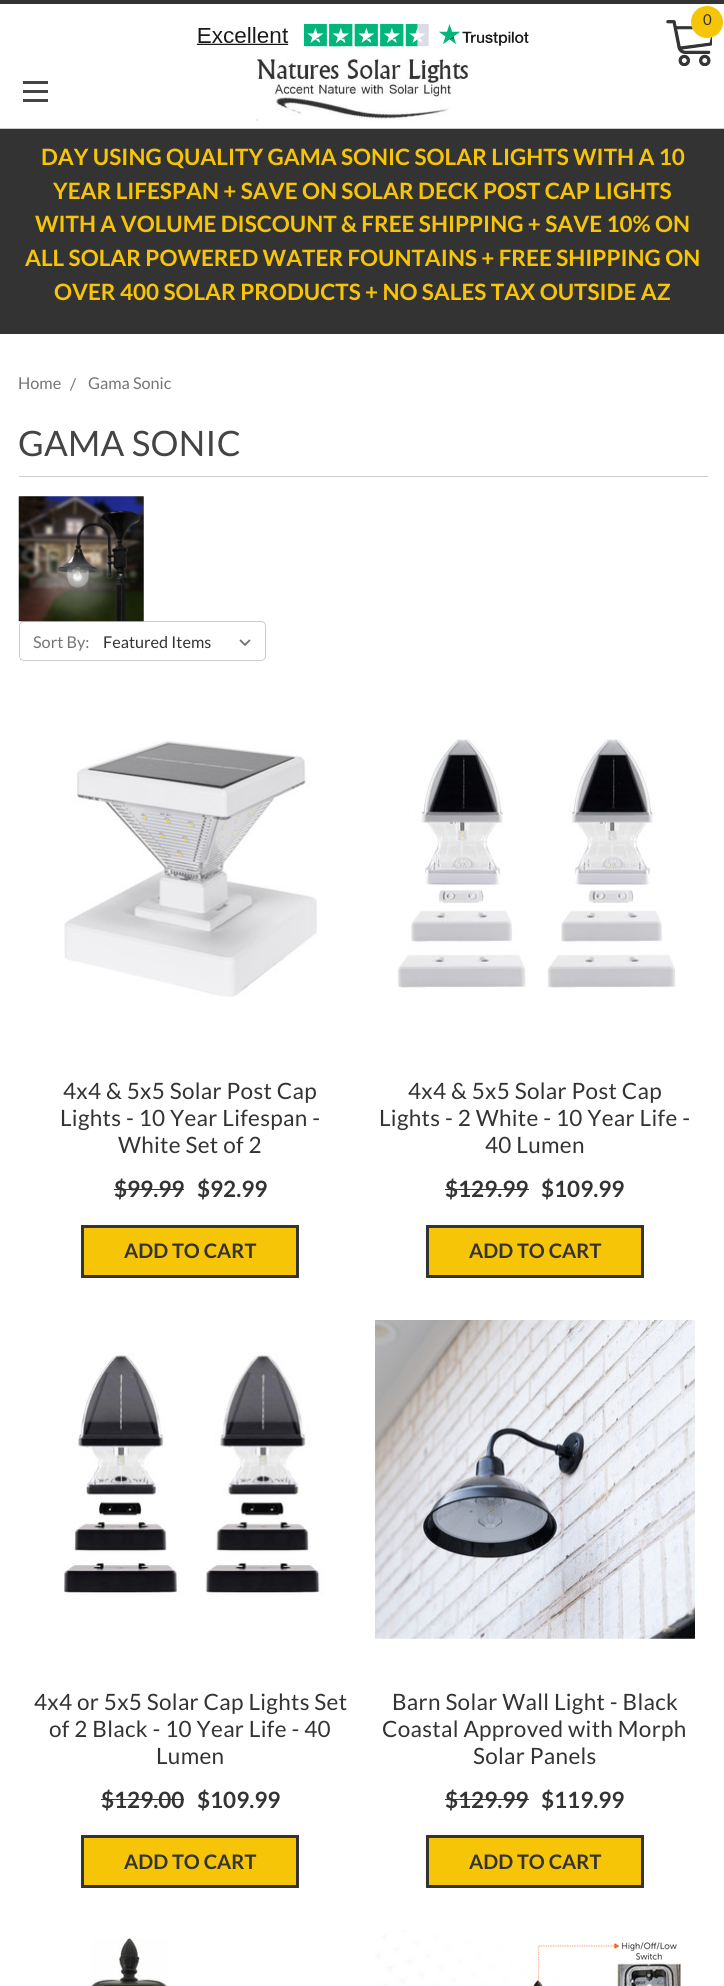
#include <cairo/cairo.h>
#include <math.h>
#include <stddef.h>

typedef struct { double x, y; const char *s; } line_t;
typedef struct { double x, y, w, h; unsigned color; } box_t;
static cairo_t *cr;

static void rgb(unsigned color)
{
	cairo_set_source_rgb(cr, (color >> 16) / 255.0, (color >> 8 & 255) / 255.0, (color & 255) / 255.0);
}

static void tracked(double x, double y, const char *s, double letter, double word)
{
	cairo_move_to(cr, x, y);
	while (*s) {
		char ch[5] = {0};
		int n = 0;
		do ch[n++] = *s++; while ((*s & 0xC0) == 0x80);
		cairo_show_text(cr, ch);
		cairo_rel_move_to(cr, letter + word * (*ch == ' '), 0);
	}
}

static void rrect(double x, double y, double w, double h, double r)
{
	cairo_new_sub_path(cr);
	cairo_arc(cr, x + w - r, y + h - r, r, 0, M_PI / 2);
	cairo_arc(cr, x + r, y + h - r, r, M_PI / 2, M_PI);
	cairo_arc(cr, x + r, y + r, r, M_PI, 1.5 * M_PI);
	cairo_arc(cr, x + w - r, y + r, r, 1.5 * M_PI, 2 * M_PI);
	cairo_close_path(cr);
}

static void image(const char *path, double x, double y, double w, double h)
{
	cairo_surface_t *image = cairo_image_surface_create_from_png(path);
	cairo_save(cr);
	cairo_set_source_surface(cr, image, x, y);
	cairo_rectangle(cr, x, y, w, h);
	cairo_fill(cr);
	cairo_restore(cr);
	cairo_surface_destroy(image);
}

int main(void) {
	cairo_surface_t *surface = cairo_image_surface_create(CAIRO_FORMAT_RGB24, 724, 1986);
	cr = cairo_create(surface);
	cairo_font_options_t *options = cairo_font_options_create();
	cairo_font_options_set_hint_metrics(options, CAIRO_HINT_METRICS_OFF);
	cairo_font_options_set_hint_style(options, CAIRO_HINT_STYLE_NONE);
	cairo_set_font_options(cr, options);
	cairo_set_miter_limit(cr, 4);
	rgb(0xffffff);
	cairo_paint(cr);
	rgb(0x333333);
	cairo_rectangle(cr, 0, 0, 724, 4);
	cairo_fill(cr);
	rgb(0xcccccc);
	cairo_rectangle(cr, 0, 128, 724, 1);
	cairo_fill(cr);
	image("img/1.png", 666, 20, 46, 46);
	rgb(0xf7c507);
	cairo_arc(cr, 707, 22, 16, 0, 2 * M_PI);
	cairo_fill(cr);
	{
		static const box_t items[] = {
			{23, 90, 25, 3, 0x444444},
			{23, 81, 25, 3, 0x444444},
			{23, 99, 25, 3, 0x444444},
		};
		for (size_t i = 0; i < sizeof items / sizeof *items; i++) {
			rgb(items[i].color);
			cairo_rectangle(cr, items[i].x, items[i].y, items[i].w, items[i].h);
			cairo_fill(cr);
		}
	}
	image("img/2.png", 256, 58, 213, 63);
	image("img/3.png", 196, 23, 333, 24);
	rgb(0x333333);
	cairo_rectangle(cr, 0, 129, 724, 205);
	cairo_fill(cr);
	rgb(0xcccccc);
	cairo_rectangle(cr, 19, 476, 689, 1);
	cairo_fill(cr);
	rrect(19.5, 621.5, 246, 39, 4.5);
	cairo_set_line_width(cr, 1);
	cairo_stroke(cr);
	image("img/4.png", 18, 496, 126, 126);
	cairo_save(cr);
	rrect(20, 623, 245, 37, 4);
	cairo_clip(cr);
	rgb(0xffffff);
	rrect(99, 623, 166, 37, 5);
	cairo_fill(cr);
	cairo_restore(cr);
	image("img/5.png", 239, 639, 12, 8);
	image("img/6.png", 64, 740, 253, 257);
	rgb(0x333333);
	cairo_rectangle(cr, 114, 1189, 70, 1);
	cairo_fill(cr);
	rgb(0xf7c507);
	cairo_rectangle(cr, 82.5, 1226.5, 215, 50);
	cairo_fill_preserve(cr);
	rgb(0x333333);
	cairo_set_line_width(cr, 3);
	cairo_stroke(cr);
	image("img/7.png", 397, 739, 279, 249);
	cairo_rectangle(cr, 445, 1189, 84, 1);
	cairo_fill(cr);
	rgb(0xf7c507);
	cairo_rectangle(cr, 427.5, 1226.5, 215, 50);
	cairo_fill_preserve(cr);
	rgb(0x333333);
	cairo_stroke(cr);
	image("img/8.png", 63, 1352, 262, 245);
	cairo_rectangle(cr, 101, 1799, 83, 1);
	cairo_fill(cr);
	rgb(0xf7c507);
	cairo_rectangle(cr, 82.5, 1836.5, 215, 50);
	cairo_fill_preserve(cr);
	rgb(0x333333);
	cairo_stroke(cr);
	image("img/9.png", 375, 1320, 320, 319);
	cairo_rectangle(cr, 445, 1799, 84, 1);
	cairo_fill(cr);
	rgb(0xf7c507);
	cairo_rectangle(cr, 427.5, 1836.5, 215, 50);
	cairo_fill_preserve(cr);
	rgb(0x333333);
	cairo_stroke(cr);
	image("img/10.png", 91, 1938, 77, 48);
	image("img/11.png", 375, 1930, 306, 56);
	cairo_select_font_face(cr, "Lato", CAIRO_FONT_SLANT_NORMAL, CAIRO_FONT_WEIGHT_NORMAL);
	cairo_set_font_size(cr, 15);
	cairo_move_to(cr, 703, 25);
	cairo_show_text(cr, "0");
	cairo_select_font_face(cr, "Lato", CAIRO_FONT_SLANT_NORMAL, CAIRO_FONT_WEIGHT_BOLD);
	cairo_set_font_size(cr, 22.5);
	rgb(0xf7c507);
	{
		static const line_t items[] = {
			{41, 165, "DAY USING QUALITY GAMA SONIC SOLAR LIGHTS WITH A 10"},
			{53, 199, "YEAR LIFESPAN + SAVE ON SOLAR DECK POST CAP LIGHTS"},
			{35, 232, "WITH A VOLUME DISCOUNT & FREE SHIPPING + SAVE 10% ON"},
			{25, 266, "ALL SOLAR POWERED WATER FOUNTAINS + FREE SHIPPING ON"},
			{54, 300, "OVER 400 SOLAR PRODUCTS + NO SALES TAX OUTSIDE AZ"},
		};
		for (size_t i = 0; i < sizeof items / sizeof *items; i++) {
			cairo_move_to(cr, items[i].x, items[i].y);
			cairo_show_text(cr, items[i].s);
		}
	}
	cairo_select_font_face(cr, "Lato", CAIRO_FONT_SLANT_NORMAL, CAIRO_FONT_WEIGHT_NORMAL);
	cairo_set_font_size(cr, 16.25);
	rgb(0x757575);
	{
		static const line_t items[] = {
			{18, 389, "Home"},
			{70, 390, "/"},
			{88, 389, "Gama Sonic"},
		};
		for (size_t i = 0; i < sizeof items / sizeof *items; i++) {
			cairo_move_to(cr, items[i].x, items[i].y);
			cairo_show_text(cr, items[i].s);
		}
	}
	cairo_set_font_size(cr, 35);
	rgb(0x444444);
	tracked(18, 456, "GAMA SONIC", 0.3, 0);
	cairo_set_font_size(cr, 16.25);
	rgb(0x757575);
	cairo_move_to(cr, 33, 648);
	cairo_show_text(cr, "Sort By:");
	rgb(0x333333);
	cairo_move_to(cr, 103, 648);
	cairo_show_text(cr, "Featured Items");
	cairo_set_font_size(cr, 22.5);
	{
		static const line_t items[] = {
			{63, 1099, "4x4 & 5x5 Solar Post Cap"},
			{60, 1126, "Lights - 10 Year Lifespan -"},
			{118, 1153, "White Set of 2"},
		};
		for (size_t i = 0; i < sizeof items / sizeof *items; i++) {
			tracked(items[i].x, items[i].y, items[i].s, 0.3, 0);
		}
	}
	cairo_select_font_face(cr, "Lato", CAIRO_FONT_SLANT_NORMAL, CAIRO_FONT_WEIGHT_BOLD);
	cairo_move_to(cr, 114, 1197);
	cairo_show_text(cr, "$99.99");
	cairo_move_to(cr, 197, 1197);
	cairo_show_text(cr, "$92.99");
	cairo_set_font_size(cr, 20);
	cairo_move_to(cr, 124, 1258);
	cairo_show_text(cr, "ADD TO CART");
	cairo_select_font_face(cr, "Lato", CAIRO_FONT_SLANT_NORMAL, CAIRO_FONT_WEIGHT_NORMAL);
	cairo_set_font_size(cr, 22.5);
	{
		static const line_t items[] = {
			{408, 1099, "4x4 & 5x5 Solar Post Cap"},
			{379, 1126, "Lights - 2 White - 10 Year Life -"},
			{485, 1153, "40 Lumen"},
		};
		for (size_t i = 0; i < sizeof items / sizeof *items; i++) {
			tracked(items[i].x, items[i].y, items[i].s, 0.3, 0);
		}
	}
	cairo_select_font_face(cr, "Lato", CAIRO_FONT_SLANT_NORMAL, CAIRO_FONT_WEIGHT_BOLD);
	cairo_move_to(cr, 445, 1197);
	cairo_show_text(cr, "$129.99");
	cairo_move_to(cr, 541, 1197);
	cairo_show_text(cr, "$109.99");
	cairo_set_font_size(cr, 20);
	cairo_move_to(cr, 469, 1258);
	cairo_show_text(cr, "ADD TO CART");
	cairo_select_font_face(cr, "Lato", CAIRO_FONT_SLANT_NORMAL, CAIRO_FONT_WEIGHT_NORMAL);
	cairo_set_font_size(cr, 22.5);
	{
		static const line_t items[] = {
			{34, 1710, "4x4 or 5x5 Solar Cap Lights Set"},
			{49, 1737, "of 2 Black - 10 Year Life - 40"},
			{156, 1764, "Lumen"},
		};
		for (size_t i = 0; i < sizeof items / sizeof *items; i++) {
			tracked(items[i].x, items[i].y, items[i].s, 0.3, 0);
		}
	}
	cairo_select_font_face(cr, "Lato", CAIRO_FONT_SLANT_NORMAL, CAIRO_FONT_WEIGHT_BOLD);
	cairo_move_to(cr, 101, 1808);
	cairo_show_text(cr, "$129.00");
	cairo_move_to(cr, 197, 1808);
	cairo_show_text(cr, "$109.99");
	cairo_set_font_size(cr, 20);
	cairo_move_to(cr, 124, 1869);
	cairo_show_text(cr, "ADD TO CART");
	cairo_select_font_face(cr, "Lato", CAIRO_FONT_SLANT_NORMAL, CAIRO_FONT_WEIGHT_NORMAL);
	cairo_set_font_size(cr, 22.5);
	{
		static const line_t items[] = {
			{392, 1710, "Barn Solar Wall Light - Black"},
			{382, 1737, "Coastal Approved with Morph"},
			{473, 1764, "Solar Panels"},
		};
		for (size_t i = 0; i < sizeof items / sizeof *items; i++) {
			tracked(items[i].x, items[i].y, items[i].s, 0.3, 0);
		}
	}
	cairo_select_font_face(cr, "Lato", CAIRO_FONT_SLANT_NORMAL, CAIRO_FONT_WEIGHT_BOLD);
	cairo_move_to(cr, 445, 1808);
	cairo_show_text(cr, "$129.99");
	cairo_move_to(cr, 541, 1808);
	cairo_show_text(cr, "$119.99");
	cairo_set_font_size(cr, 20);
	cairo_move_to(cr, 469, 1869);
	cairo_show_text(cr, "ADD TO CART");
	cairo_surface_write_to_png(surface, "page.png");
	cairo_font_options_destroy(options);
	cairo_destroy(cr);
	cairo_surface_destroy(surface);
	return 0;
}
